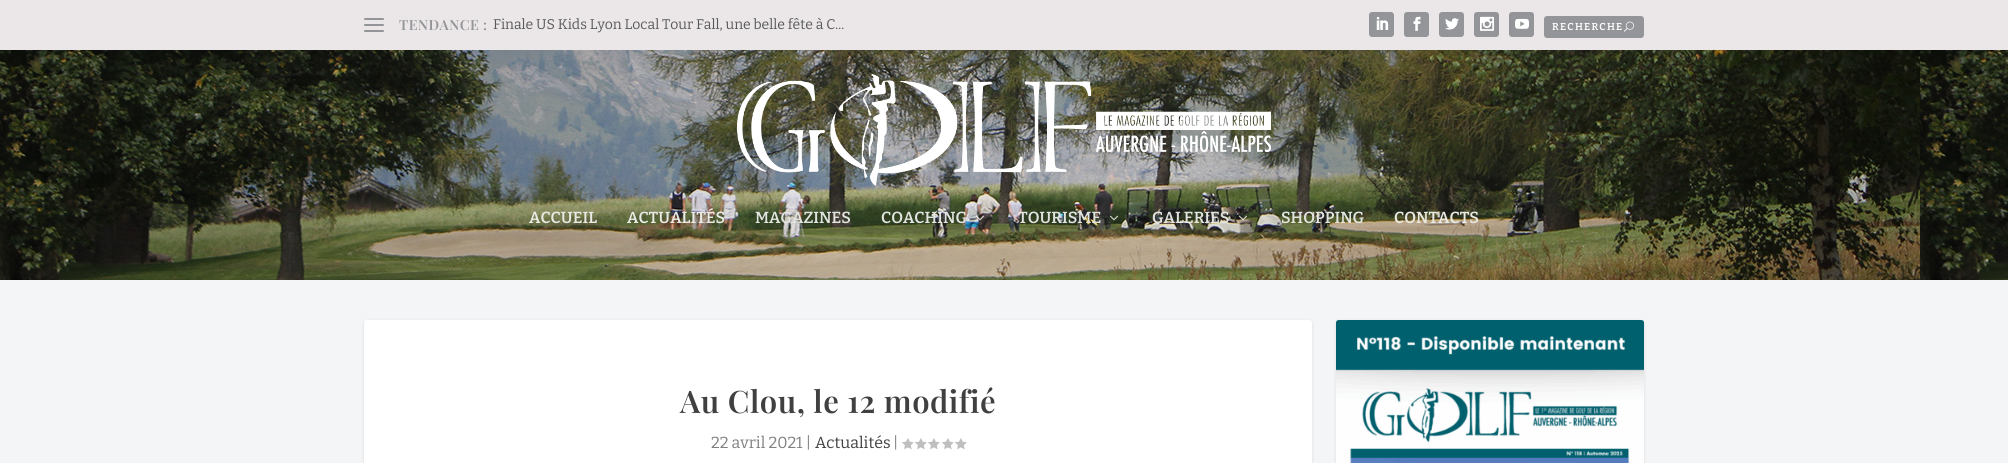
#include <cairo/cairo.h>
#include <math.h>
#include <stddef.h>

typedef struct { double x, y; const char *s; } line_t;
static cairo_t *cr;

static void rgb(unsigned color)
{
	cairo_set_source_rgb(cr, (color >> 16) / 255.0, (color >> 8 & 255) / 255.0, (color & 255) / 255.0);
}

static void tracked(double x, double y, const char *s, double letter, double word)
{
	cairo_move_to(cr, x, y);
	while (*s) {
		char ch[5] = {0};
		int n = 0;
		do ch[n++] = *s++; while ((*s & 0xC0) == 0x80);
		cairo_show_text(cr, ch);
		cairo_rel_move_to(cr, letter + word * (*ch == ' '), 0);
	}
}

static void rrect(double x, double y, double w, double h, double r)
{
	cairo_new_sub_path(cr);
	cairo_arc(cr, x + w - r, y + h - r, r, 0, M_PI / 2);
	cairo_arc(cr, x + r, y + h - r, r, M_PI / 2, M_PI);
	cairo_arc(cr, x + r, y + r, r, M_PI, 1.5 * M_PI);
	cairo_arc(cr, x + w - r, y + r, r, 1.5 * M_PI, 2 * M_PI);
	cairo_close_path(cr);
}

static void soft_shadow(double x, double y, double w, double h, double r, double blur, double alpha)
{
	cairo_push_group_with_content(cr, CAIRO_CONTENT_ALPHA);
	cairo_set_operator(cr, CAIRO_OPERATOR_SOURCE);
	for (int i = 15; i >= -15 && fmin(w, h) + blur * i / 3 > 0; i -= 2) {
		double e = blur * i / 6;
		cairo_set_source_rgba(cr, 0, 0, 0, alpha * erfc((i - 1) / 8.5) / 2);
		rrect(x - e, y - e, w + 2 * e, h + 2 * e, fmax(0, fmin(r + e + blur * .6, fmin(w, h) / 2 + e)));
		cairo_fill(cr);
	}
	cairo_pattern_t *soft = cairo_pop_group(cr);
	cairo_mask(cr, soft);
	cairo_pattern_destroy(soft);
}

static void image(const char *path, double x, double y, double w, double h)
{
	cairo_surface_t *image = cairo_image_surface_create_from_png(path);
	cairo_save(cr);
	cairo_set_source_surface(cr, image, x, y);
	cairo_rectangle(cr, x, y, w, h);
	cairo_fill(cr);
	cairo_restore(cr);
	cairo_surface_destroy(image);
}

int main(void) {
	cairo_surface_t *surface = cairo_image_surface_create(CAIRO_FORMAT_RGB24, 2008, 463);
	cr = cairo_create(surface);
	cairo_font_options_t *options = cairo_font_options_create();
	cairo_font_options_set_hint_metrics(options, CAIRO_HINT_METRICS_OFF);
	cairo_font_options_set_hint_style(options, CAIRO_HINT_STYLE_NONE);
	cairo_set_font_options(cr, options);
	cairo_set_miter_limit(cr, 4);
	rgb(0xf4f5f7);
	cairo_paint(cr);
	rgb(0xebe7e8);
	cairo_rectangle(cr, 0, 0, 2008, 50);
	cairo_fill(cr);
	rgb(0x939598);
	rrect(364, 18, 20, 2, 1);
	cairo_fill(cr);
	rrect(364, 24, 20, 2, 1);
	cairo_fill(cr);
	rrect(364, 30, 20, 2, 1);
	cairo_fill(cr);
	rrect(1369, 12, 25, 25, 3);
	cairo_fill(cr);
	image("img/1.png", 1376, 16, 13, 14);
	rrect(1404, 12, 25, 25, 3);
	cairo_fill(cr);
	image("img/2.png", 1413, 16, 8, 15);
	rrect(1439, 12, 25, 25, 3);
	cairo_fill(cr);
	image("img/3.png", 1445, 18, 14, 12);
	rrect(1474, 12, 25, 25, 3);
	cairo_fill(cr);
	image("img/4.png", 1480, 16, 14, 15);
	rrect(1509, 12, 25, 25, 3);
	cairo_fill(cr);
	image("img/5.png", 1515, 18, 14, 11);
	rrect(1544, 16, 100, 22, 3);
	cairo_fill(cr);
	image("img/6.png", 1624, 21, 10, 11);
	image("img/7.png", 0, 50, 2008, 230);
	image("img/8.png", 737, 74, 534, 112);
	image("img/9.png", 976, 215, 8, 6);
	image("img/10.png", 1110, 215, 8, 6);
	image("img/11.png", 1239, 215, 8, 6);
	rgb(0x000000);
	soft_shadow(364, 321, 948, 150, 3, 1.5, 0.1);
	rgb(0xffffff);
	rrect(364, 320, 948, 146, 3);
	cairo_fill(cr);
	image("img/12.png", 902, 438, 12, 12);
	image("img/12.png", 915, 438, 12, 12);
	image("img/12.png", 928, 438, 12, 12);
	image("img/12.png", 942, 438, 12, 12);
	image("img/12.png", 955, 438, 12, 12);
	rgb(0x000000);
	soft_shadow(1336, 321, 308, 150, 3, 1.5, 0.1);
	image("img/13.png", 1336, 320, 308, 143);
	cairo_select_font_face(cr, "Playfair Display SemiBold", CAIRO_FONT_SLANT_NORMAL, CAIRO_FONT_WEIGHT_NORMAL);
	cairo_set_font_size(cr, 14);
	rgb(0x939598);
	tracked(399, 30, "TENDANCE :", 0.5, 0);
	cairo_select_font_face(cr, "Bitter", CAIRO_FONT_SLANT_NORMAL, CAIRO_FONT_WEIGHT_NORMAL);
	rgb(0x58595b);
	cairo_move_to(cr, 493, 29);
	cairo_show_text(cr, "Finale US Kids Lyon Local Tour Fall, une belle fête à C...");
	cairo_select_font_face(cr, "Bitter SemiBold", CAIRO_FONT_SLANT_NORMAL, CAIRO_FONT_WEIGHT_NORMAL);
	cairo_set_font_size(cr, 10);
	rgb(0xffffff);
	tracked(1552, 30, "RECHERCHE", 1.25, 0);
	cairo_set_font_size(cr, 16);
	rgb(0xe9eae3);
	cairo_move_to(cr, 529, 223);
	cairo_show_text(cr, "ACCUEIL");
	cairo_move_to(cr, 627, 223);
	cairo_show_text(cr, "ACTUALITÉS");
	rgb(0xe2e4e0);
	{
		static const line_t items[] = {
			{755, 223, "MAGAZINES"},
			{881, 223, "COACHING"},
			{1018, 223, "TOURISME"},
			{1152, 223, "GALERIES"},
			{1281, 223, "SHOPPING"},
		};
		for (size_t i = 0; i < sizeof items / sizeof *items; i++) {
			cairo_move_to(cr, items[i].x, items[i].y);
			cairo_show_text(cr, items[i].s);
		}
	}
	rgb(0xe9eae3);
	cairo_move_to(cr, 1394, 223);
	cairo_show_text(cr, "CONTACTS");
	cairo_select_font_face(cr, "Playfair Display SemiBold", CAIRO_FONT_SLANT_NORMAL, CAIRO_FONT_WEIGHT_NORMAL);
	cairo_set_font_size(cr, 31);
	rgb(0x404040);
	tracked(680, 413, "Au Clou, le 12 modifié", 0.5, 0);
	cairo_select_font_face(cr, "Bitter", CAIRO_FONT_SLANT_NORMAL, CAIRO_FONT_WEIGHT_NORMAL);
	cairo_set_font_size(cr, 16);
	rgb(0x808080);
	cairo_move_to(cr, 711, 448);
	cairo_show_text(cr, "22 avril 2021 |");
	rgb(0x404040);
	cairo_move_to(cr, 815, 448);
	cairo_show_text(cr, "Actualités");
	rgb(0x808080);
	cairo_move_to(cr, 893, 448);
	cairo_show_text(cr, "|");
	cairo_surface_write_to_png(surface, "page.png");
	cairo_font_options_destroy(options);
	cairo_destroy(cr);
	cairo_surface_destroy(surface);
	return 0;
}
